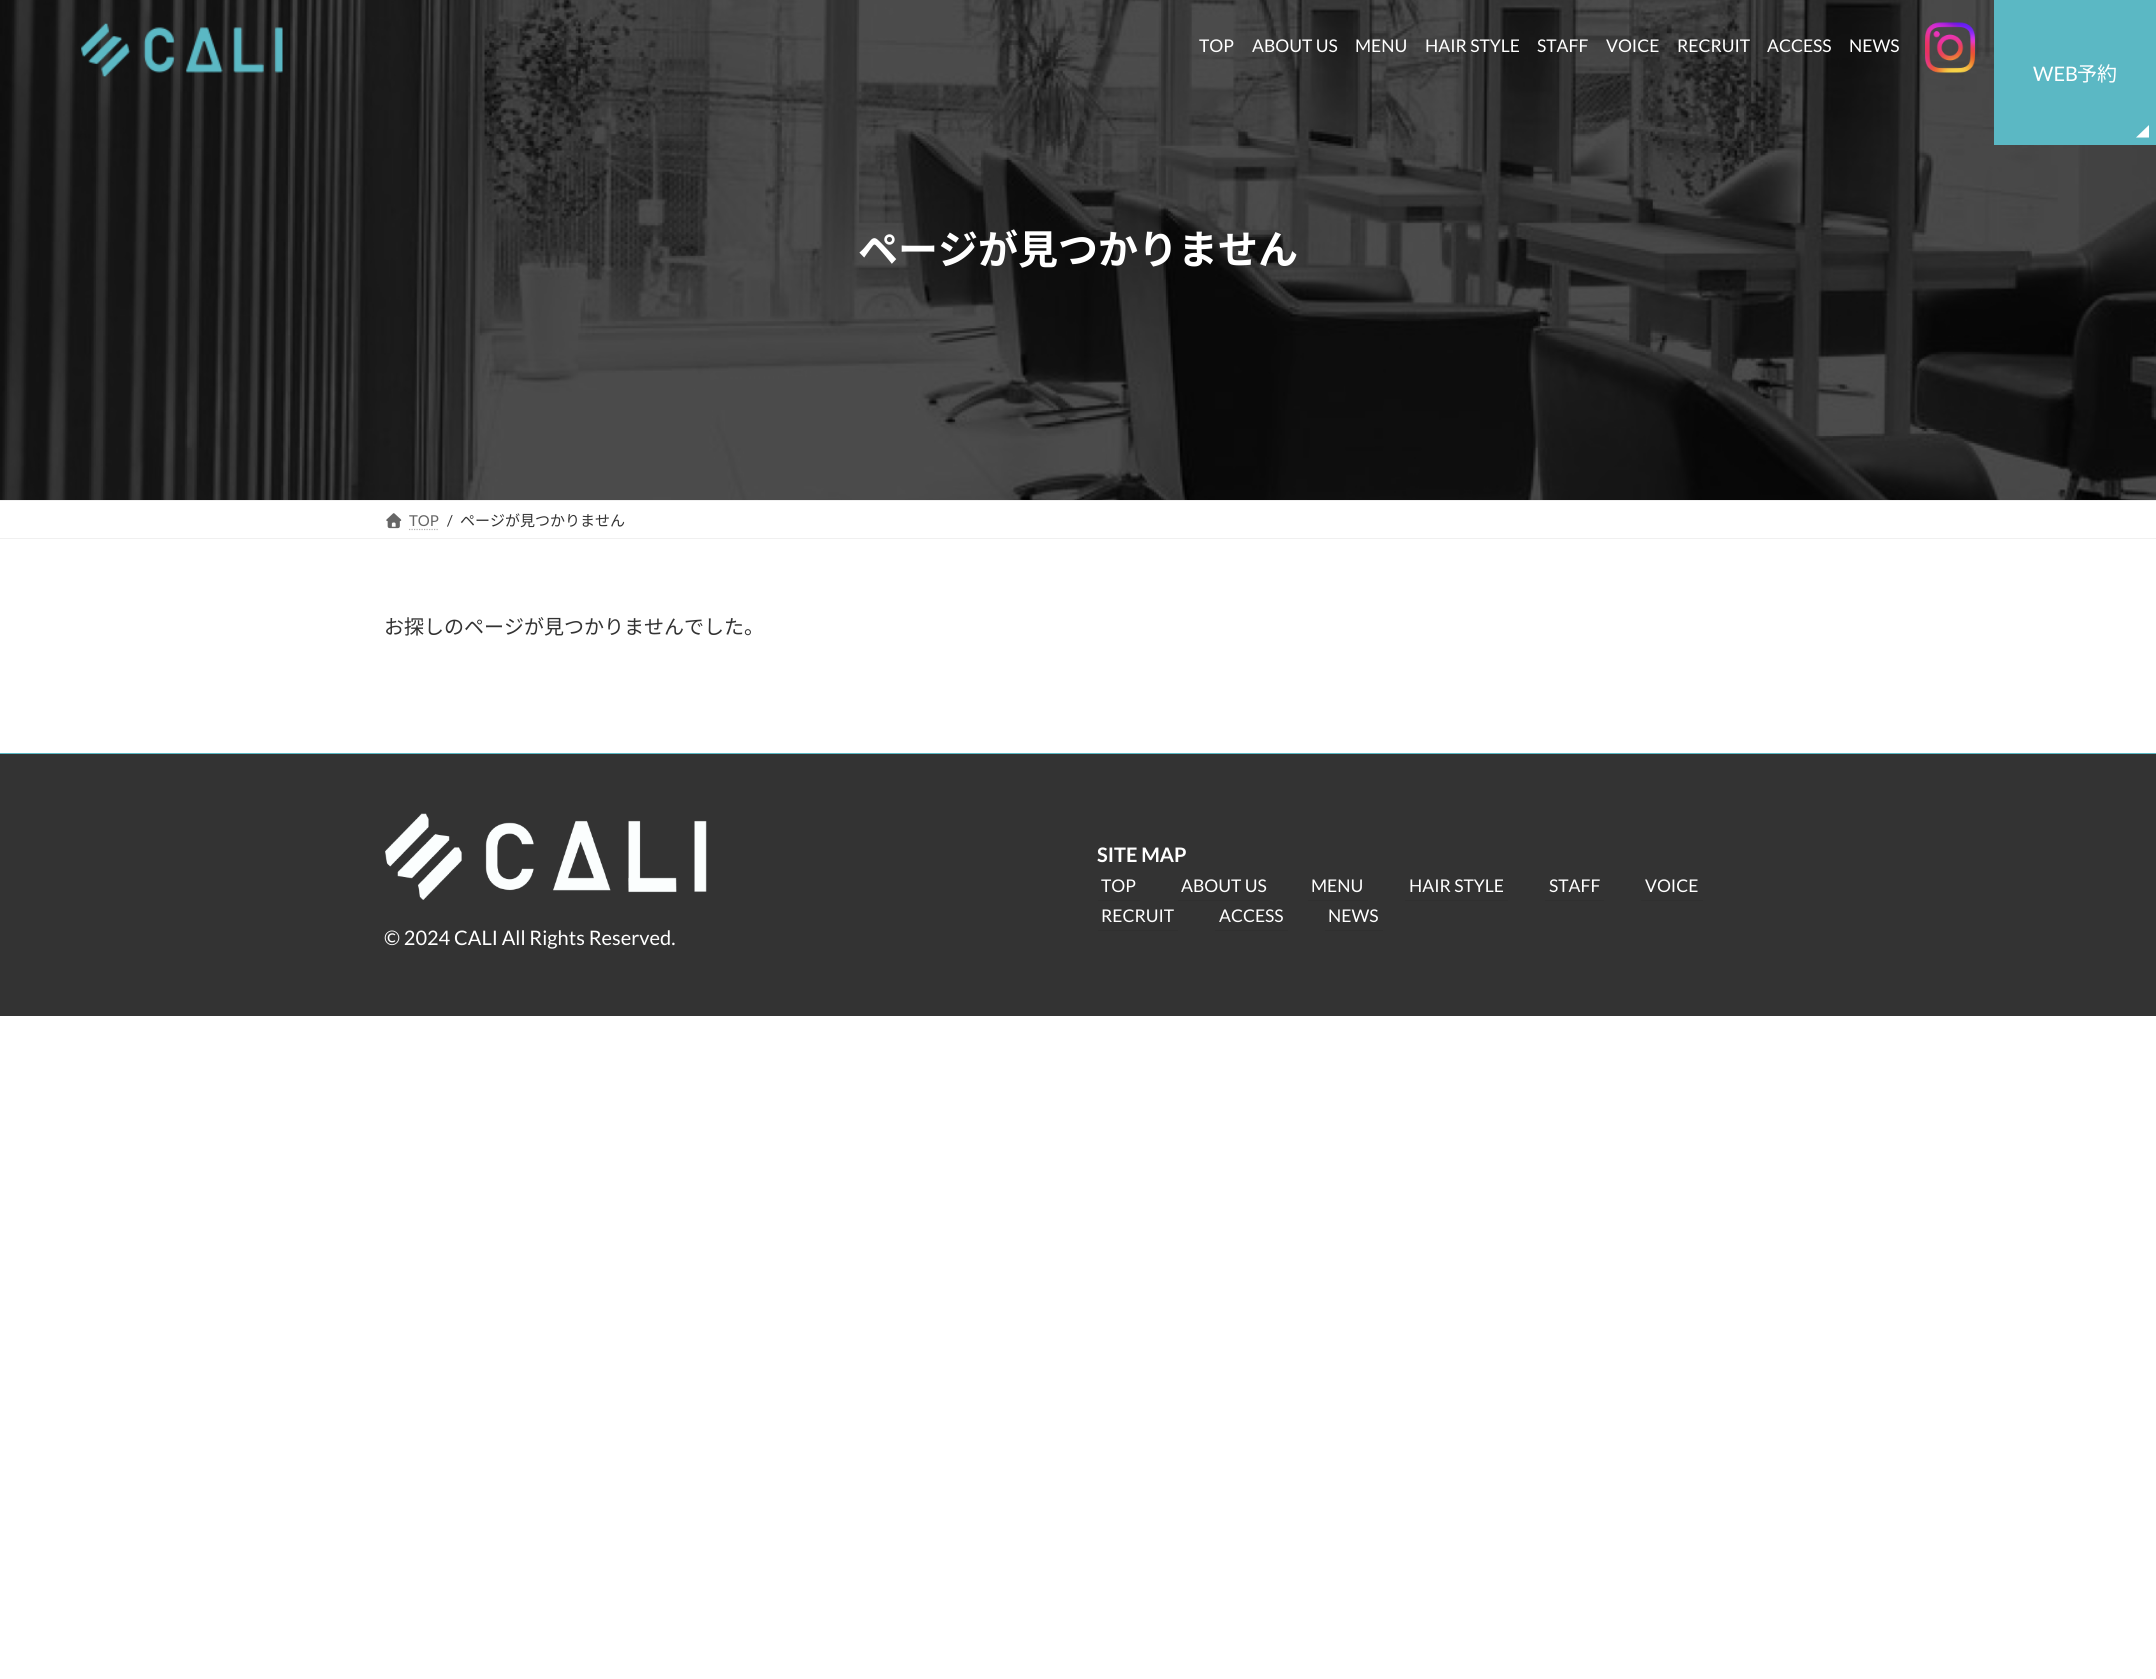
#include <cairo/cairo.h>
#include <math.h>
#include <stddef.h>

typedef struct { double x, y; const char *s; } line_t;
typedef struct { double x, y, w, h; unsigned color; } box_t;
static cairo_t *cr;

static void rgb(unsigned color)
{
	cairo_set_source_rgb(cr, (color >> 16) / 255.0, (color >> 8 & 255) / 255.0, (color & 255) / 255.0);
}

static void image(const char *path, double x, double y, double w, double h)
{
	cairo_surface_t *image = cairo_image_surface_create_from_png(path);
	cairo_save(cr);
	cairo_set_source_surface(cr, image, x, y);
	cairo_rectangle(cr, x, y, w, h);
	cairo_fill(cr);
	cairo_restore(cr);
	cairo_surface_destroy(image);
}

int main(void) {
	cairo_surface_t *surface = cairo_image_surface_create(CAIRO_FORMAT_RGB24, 2156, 1679);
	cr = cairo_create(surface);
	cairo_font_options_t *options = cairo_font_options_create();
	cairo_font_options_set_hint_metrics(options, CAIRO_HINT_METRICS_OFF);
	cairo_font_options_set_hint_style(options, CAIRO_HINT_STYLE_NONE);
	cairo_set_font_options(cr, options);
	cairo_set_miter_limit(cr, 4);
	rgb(0xffffff);
	cairo_paint(cr);
	image("img/3.png", 0, 0, 2156, 500);
	image("img/1.png", 81, 23, 202, 54);
	image("img/2.png", 1925, 22, 50, 51);
	rgb(0x5bb8c4);
	cairo_rectangle(cr, 1994, 0, 162, 145);
	cairo_fill(cr);
	rgb(0xffffff);
	cairo_new_path(cr);
	cairo_move_to(cr, 2136, 137.5);
	cairo_line_to(cr, 2149, 137.5);
	cairo_line_to(cr, 2149, 125);
	cairo_close_path(cr);
	cairo_fill(cr);
	rgb(0xf0f0f0);
	cairo_rectangle(cr, 0, 500, 2156, 1);
	cairo_fill(cr);
	cairo_rectangle(cr, 0, 538, 2156, 1);
	cairo_fill(cr);
	image("img/4.png", 386, 513, 16, 16);
	cairo_new_path(cr);
	cairo_move_to(cr, 409, 529.5);
	cairo_line_to(cr, 439, 529.5);
	rgb(0xb3b3b3);
	cairo_set_line_width(cr, 1.2);
	cairo_set_dash(cr, (double[]){1.25, 1.25}, 2, 0);
	cairo_stroke(cr);
	{
		static const box_t items[] = {
			{0, 754, 2156, 262, 0x333333},
			{0, 753, 2156, 1, 0x5bb8c4},
			{1098, 900, 42, 1, 0x303030},
			{1178, 900, 92, 1, 0x303030},
			{1308, 900, 60, 1, 0x303030},
			{1405, 900, 103, 1, 0x303030},
			{1545, 900, 59, 1, 0x303030},
			{1641, 900, 62, 1, 0x303030},
			{1098, 930, 80, 1, 0x303030},
			{1215, 930, 73, 1, 0x303030},
			{1325, 930, 58, 1, 0x303030},
		};
		for (size_t i = 0; i < sizeof items / sizeof *items; i++) {
			rgb(items[i].color);
			cairo_rectangle(cr, items[i].x, items[i].y, items[i].w, items[i].h);
			cairo_fill(cr);
		}
	}
	image("img/5.png", 385, 813, 322, 87);
	cairo_select_font_face(cr, "Lato", CAIRO_FONT_SLANT_NORMAL, CAIRO_FONT_WEIGHT_NORMAL);
	cairo_set_font_size(cr, 17.5);
	rgb(0xffffff);
	{
		static const line_t items[] = {
			{1199, 52, "TOP"},
			{1252, 52, "ABOUT US"},
			{1355, 52, "MENU"},
			{1425, 52, "HAIR STYLE"},
			{1537, 52, "STAFF"},
			{1606, 52, "VOICE"},
			{1677, 52, "RECRUIT"},
			{1767, 52, "ACCESS"},
			{1849, 52, "NEWS"},
		};
		for (size_t i = 0; i < sizeof items / sizeof *items; i++) {
			cairo_move_to(cr, items[i].x, items[i].y);
			cairo_show_text(cr, items[i].s);
		}
	}
	cairo_set_font_size(cr, 20);
	cairo_move_to(cr, 2033, 81);
	cairo_show_text(cr, "WEB");
	cairo_select_font_face(cr, "Noto Sans JP", CAIRO_FONT_SLANT_NORMAL, CAIRO_FONT_WEIGHT_NORMAL);
	cairo_move_to(cr, 2077, 81);
	cairo_show_text(cr, "予約");
	cairo_select_font_face(cr, "Noto Sans JP", CAIRO_FONT_SLANT_NORMAL, CAIRO_FONT_WEIGHT_BOLD);
	cairo_set_font_size(cr, 40);
	cairo_move_to(cr, 858, 264);
	cairo_show_text(cr, "ページが見つかりません");
	cairo_select_font_face(cr, "Lato", CAIRO_FONT_SLANT_NORMAL, CAIRO_FONT_WEIGHT_NORMAL);
	cairo_set_font_size(cr, 15);
	rgb(0x666666);
	cairo_move_to(cr, 409, 526);
	cairo_show_text(cr, "TOP");
	rgb(0x333333);
	cairo_move_to(cr, 447, 526);
	cairo_show_text(cr, "/");
	cairo_select_font_face(cr, "Noto Sans JP", CAIRO_FONT_SLANT_NORMAL, CAIRO_FONT_WEIGHT_NORMAL);
	cairo_move_to(cr, 460, 526);
	cairo_show_text(cr, "ページが見つかりません");
	cairo_set_font_size(cr, 20);
	cairo_move_to(cr, 384, 634);
	cairo_show_text(cr, "お探しのページが見つかりませんでした。");
	cairo_select_font_face(cr, "Lato", CAIRO_FONT_SLANT_NORMAL, CAIRO_FONT_WEIGHT_BOLD);
	rgb(0xffffff);
	cairo_move_to(cr, 1097, 862);
	cairo_show_text(cr, "SITE MAP");
	cairo_select_font_face(cr, "Lato", CAIRO_FONT_SLANT_NORMAL, CAIRO_FONT_WEIGHT_NORMAL);
	cairo_set_font_size(cr, 17.5);
	{
		static const line_t items[] = {
			{1101, 892, "TOP"},
			{1181, 892, "ABOUT US"},
			{1311, 892, "MENU"},
			{1409, 892, "HAIR STYLE"},
			{1549, 892, "STAFF"},
			{1645, 892, "VOICE"},
			{1101, 922, "RECRUIT"},
			{1219, 922, "ACCESS"},
			{1328, 922, "NEWS"},
		};
		for (size_t i = 0; i < sizeof items / sizeof *items; i++) {
			cairo_move_to(cr, items[i].x, items[i].y);
			cairo_show_text(cr, items[i].s);
		}
	}
	cairo_set_font_size(cr, 20);
	cairo_move_to(cr, 384, 945);
	cairo_show_text(cr, "© 2024 CALI All Rights Reserved.");
	cairo_surface_write_to_png(surface, "page.png");
	cairo_font_options_destroy(options);
	cairo_destroy(cr);
	cairo_surface_destroy(surface);
	return 0;
}
